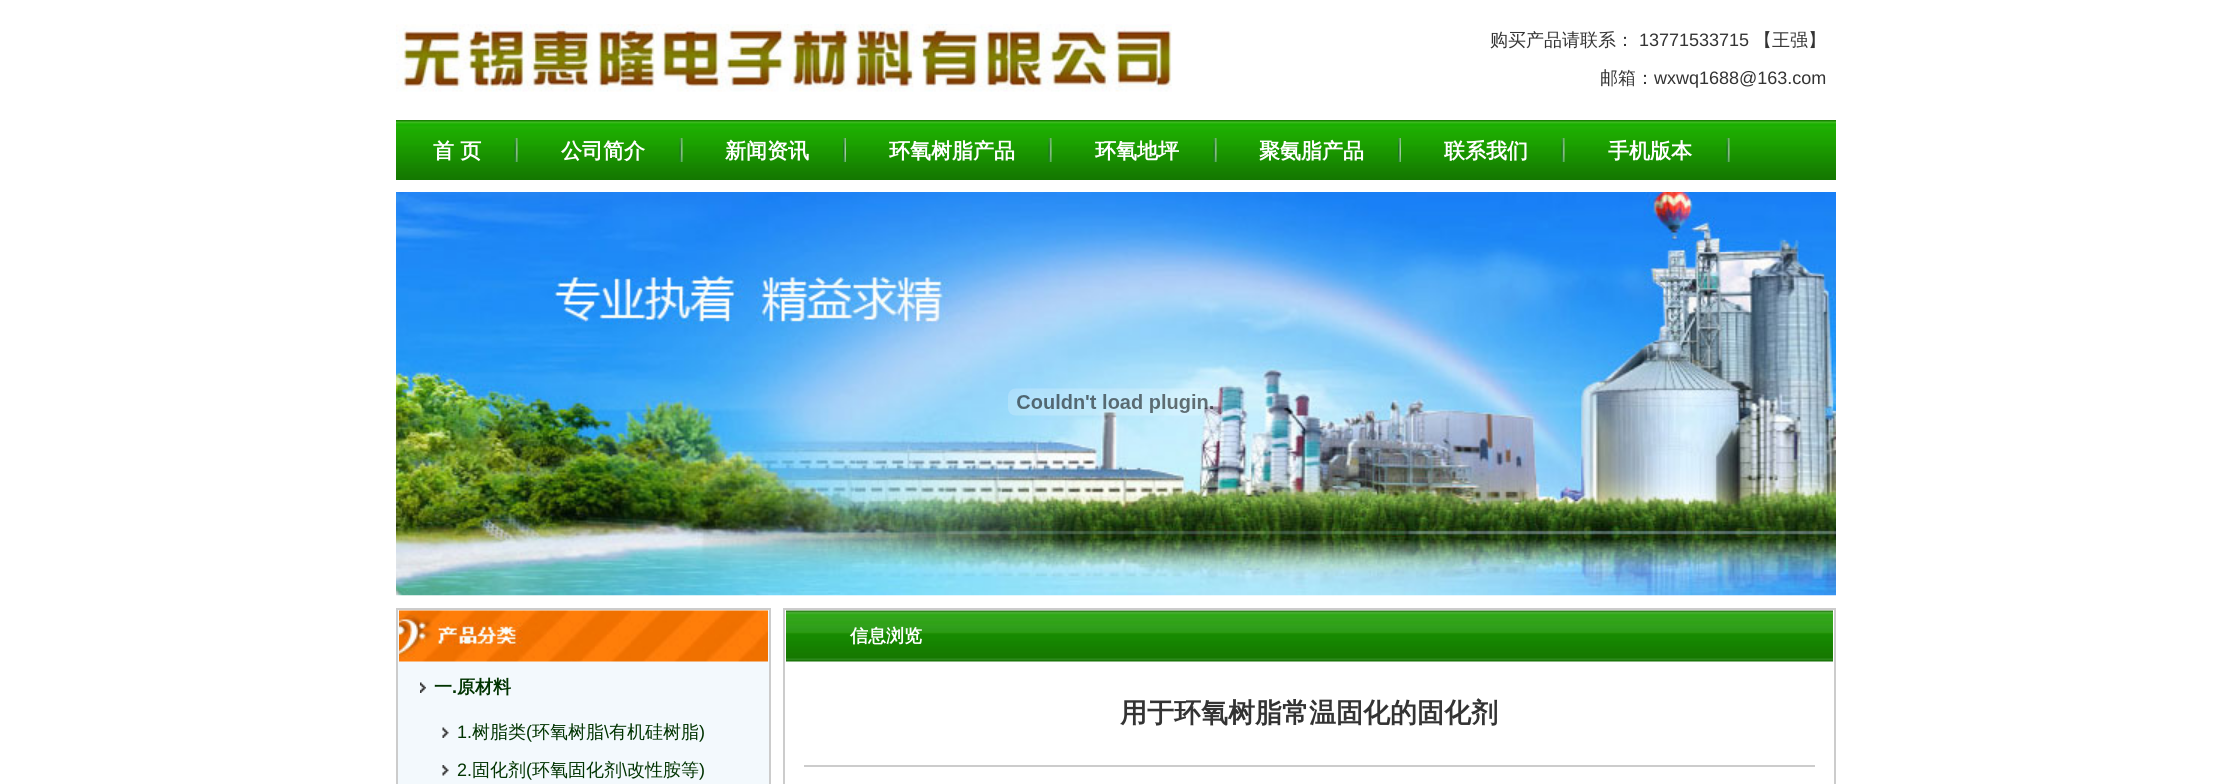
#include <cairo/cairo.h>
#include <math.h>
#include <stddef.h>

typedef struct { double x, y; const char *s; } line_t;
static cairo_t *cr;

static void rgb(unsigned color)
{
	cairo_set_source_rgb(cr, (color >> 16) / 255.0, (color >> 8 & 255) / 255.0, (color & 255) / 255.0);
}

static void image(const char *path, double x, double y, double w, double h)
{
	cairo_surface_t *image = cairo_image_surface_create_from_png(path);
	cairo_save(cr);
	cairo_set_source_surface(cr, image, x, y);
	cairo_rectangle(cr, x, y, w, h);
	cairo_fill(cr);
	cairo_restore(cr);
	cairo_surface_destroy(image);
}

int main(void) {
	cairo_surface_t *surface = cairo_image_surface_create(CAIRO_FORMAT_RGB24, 2230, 784);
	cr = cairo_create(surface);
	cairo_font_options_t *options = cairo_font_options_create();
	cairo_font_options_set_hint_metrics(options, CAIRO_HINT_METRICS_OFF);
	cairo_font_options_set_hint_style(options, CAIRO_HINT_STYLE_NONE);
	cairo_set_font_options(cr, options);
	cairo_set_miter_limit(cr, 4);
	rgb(0xffffff);
	cairo_paint(cr);
	image("img/1.png", 396, 24, 776, 68);
	image("img/2.png", 396, 120, 1440, 60);
	image("img/3.png", 514, 138, 4, 24);
	image("img/3.png", 679, 138, 4, 24);
	image("img/4.png", 843, 138, 3, 24);
	image("img/3.png", 1048, 138, 4, 24);
	image("img/3.png", 1213, 138, 4, 24);
	image("img/4.png", 1398, 138, 3, 24);
	image("img/3.png", 1561, 138, 4, 24);
	image("img/3.png", 1726, 138, 4, 24);
	image("img/5.png", 396, 192, 1440, 404);
	image("img/6.png", 1008, 388, 215, 28);
	rgb(0xf3f9fd);
	cairo_rectangle(cr, 397, 609, 373, 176);
	cairo_fill_preserve(cr);
	rgb(0xcccccc);
	cairo_stroke(cr);
	image("img/7.png", 399, 610, 369, 52);
	image("img/8.png", 420, 682, 6, 11);
	image("img/9.png", 442, 727, 7, 11);
	image("img/10.png", 442, 765, 7, 11);
	cairo_rectangle(cr, 784, 609, 1051, 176);
	cairo_stroke(cr);
	image("img/11.png", 786, 610, 1047, 52);
	cairo_rectangle(cr, 804, 765, 1011, 2);
	cairo_fill(cr);
	cairo_select_font_face(cr, "WenQuanYi Zen Hei Medium", CAIRO_FONT_SLANT_NORMAL, CAIRO_FONT_WEIGHT_NORMAL);
	cairo_set_font_size(cr, 18);
	rgb(0x333333);
	cairo_move_to(cr, 1490, 46);
	cairo_show_text(cr, "购买产品请联系：");
	cairo_select_font_face(cr, "Liberation Sans", CAIRO_FONT_SLANT_NORMAL, CAIRO_FONT_WEIGHT_NORMAL);
	cairo_move_to(cr, 1639, 46);
	cairo_show_text(cr, "13771533715");
	cairo_select_font_face(cr, "WenQuanYi Zen Hei Medium", CAIRO_FONT_SLANT_NORMAL, CAIRO_FONT_WEIGHT_NORMAL);
	cairo_move_to(cr, 1754, 46);
	cairo_show_text(cr, "【王强】");
	cairo_move_to(cr, 1600, 84);
	cairo_show_text(cr, "邮箱：");
	cairo_select_font_face(cr, "Liberation Sans", CAIRO_FONT_SLANT_NORMAL, CAIRO_FONT_WEIGHT_NORMAL);
	cairo_move_to(cr, 1654, 84);
	cairo_show_text(cr, "wxwq1688@163.com");
	cairo_select_font_face(cr, "WenQuanYi Zen Hei", CAIRO_FONT_SLANT_NORMAL, CAIRO_FONT_WEIGHT_BOLD);
	cairo_set_font_size(cr, 21);
	rgb(0xffffff);
	{
		static const line_t items[] = {
			{433, 158, "首 页"},
			{561, 158, "公司简介"},
			{725, 158, "新闻资讯"},
			{889, 158, "环氧树脂产品"},
			{1095, 158, "环氧地坪"},
			{1259, 158, "聚氨脂产品"},
			{1444, 158, "联系我们"},
			{1608, 158, "手机版本"},
		};
		for (size_t i = 0; i < sizeof items / sizeof *items; i++) {
			cairo_move_to(cr, items[i].x, items[i].y);
			cairo_show_text(cr, items[i].s);
		}
	}
	cairo_set_font_size(cr, 18);
	rgb(0x003300);
	cairo_move_to(cr, 434, 693);
	cairo_show_text(cr, "一");
	cairo_move_to(cr, 457, 693);
	cairo_show_text(cr, "原材料");
	cairo_select_font_face(cr, "Liberation Sans", CAIRO_FONT_SLANT_NORMAL, CAIRO_FONT_WEIGHT_BOLD);
	cairo_move_to(cr, 452, 693);
	cairo_show_text(cr, ".");
	cairo_select_font_face(cr, "Liberation Sans", CAIRO_FONT_SLANT_NORMAL, CAIRO_FONT_WEIGHT_NORMAL);
	cairo_move_to(cr, 457, 738);
	cairo_show_text(cr, "1.");
	cairo_select_font_face(cr, "WenQuanYi Zen Hei Medium", CAIRO_FONT_SLANT_NORMAL, CAIRO_FONT_WEIGHT_NORMAL);
	cairo_move_to(cr, 472, 738);
	cairo_show_text(cr, "树脂类");
	cairo_select_font_face(cr, "Liberation Sans", CAIRO_FONT_SLANT_NORMAL, CAIRO_FONT_WEIGHT_NORMAL);
	cairo_move_to(cr, 526, 738);
	cairo_show_text(cr, "(");
	cairo_select_font_face(cr, "WenQuanYi Zen Hei Medium", CAIRO_FONT_SLANT_NORMAL, CAIRO_FONT_WEIGHT_NORMAL);
	cairo_move_to(cr, 532, 738);
	cairo_show_text(cr, "环氧树脂");
	cairo_select_font_face(cr, "Liberation Sans", CAIRO_FONT_SLANT_NORMAL, CAIRO_FONT_WEIGHT_NORMAL);
	cairo_move_to(cr, 604, 738);
	cairo_show_text(cr, "\\");
	cairo_select_font_face(cr, "WenQuanYi Zen Hei Medium", CAIRO_FONT_SLANT_NORMAL, CAIRO_FONT_WEIGHT_NORMAL);
	cairo_move_to(cr, 609, 738);
	cairo_show_text(cr, "有机硅树脂");
	cairo_select_font_face(cr, "Liberation Sans", CAIRO_FONT_SLANT_NORMAL, CAIRO_FONT_WEIGHT_NORMAL);
	cairo_move_to(cr, 699, 738);
	cairo_show_text(cr, ")");
	cairo_move_to(cr, 457, 776);
	cairo_show_text(cr, "2.");
	cairo_select_font_face(cr, "WenQuanYi Zen Hei Medium", CAIRO_FONT_SLANT_NORMAL, CAIRO_FONT_WEIGHT_NORMAL);
	cairo_move_to(cr, 472, 776);
	cairo_show_text(cr, "固化剂");
	cairo_select_font_face(cr, "Liberation Sans", CAIRO_FONT_SLANT_NORMAL, CAIRO_FONT_WEIGHT_NORMAL);
	cairo_move_to(cr, 526, 776);
	cairo_show_text(cr, "(");
	cairo_select_font_face(cr, "WenQuanYi Zen Hei Medium", CAIRO_FONT_SLANT_NORMAL, CAIRO_FONT_WEIGHT_NORMAL);
	cairo_move_to(cr, 532, 776);
	cairo_show_text(cr, "环氧固化剂");
	cairo_select_font_face(cr, "Liberation Sans", CAIRO_FONT_SLANT_NORMAL, CAIRO_FONT_WEIGHT_NORMAL);
	cairo_move_to(cr, 622, 776);
	cairo_show_text(cr, "\\");
	cairo_select_font_face(cr, "WenQuanYi Zen Hei Medium", CAIRO_FONT_SLANT_NORMAL, CAIRO_FONT_WEIGHT_NORMAL);
	cairo_move_to(cr, 627, 776);
	cairo_show_text(cr, "改性胺等");
	cairo_select_font_face(cr, "Liberation Sans", CAIRO_FONT_SLANT_NORMAL, CAIRO_FONT_WEIGHT_NORMAL);
	cairo_move_to(cr, 699, 776);
	cairo_show_text(cr, ")");
	cairo_select_font_face(cr, "WenQuanYi Zen Hei", CAIRO_FONT_SLANT_NORMAL, CAIRO_FONT_WEIGHT_BOLD);
	rgb(0xffffff);
	cairo_move_to(cr, 850, 642);
	cairo_show_text(cr, "信息浏览");
	cairo_set_font_size(cr, 27);
	rgb(0x333333);
	cairo_move_to(cr, 1120, 722);
	cairo_show_text(cr, "用于环氧树脂常温固化的固化剂");
	cairo_surface_write_to_png(surface, "page.png");
	cairo_font_options_destroy(options);
	cairo_destroy(cr);
	cairo_surface_destroy(surface);
	return 0;
}
